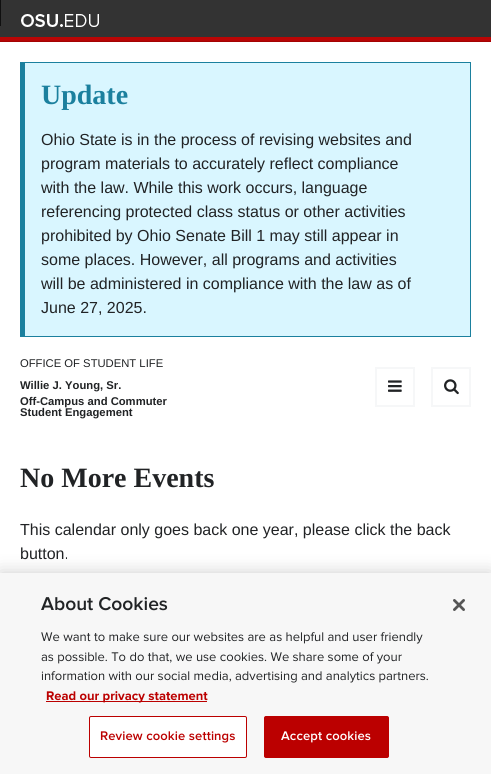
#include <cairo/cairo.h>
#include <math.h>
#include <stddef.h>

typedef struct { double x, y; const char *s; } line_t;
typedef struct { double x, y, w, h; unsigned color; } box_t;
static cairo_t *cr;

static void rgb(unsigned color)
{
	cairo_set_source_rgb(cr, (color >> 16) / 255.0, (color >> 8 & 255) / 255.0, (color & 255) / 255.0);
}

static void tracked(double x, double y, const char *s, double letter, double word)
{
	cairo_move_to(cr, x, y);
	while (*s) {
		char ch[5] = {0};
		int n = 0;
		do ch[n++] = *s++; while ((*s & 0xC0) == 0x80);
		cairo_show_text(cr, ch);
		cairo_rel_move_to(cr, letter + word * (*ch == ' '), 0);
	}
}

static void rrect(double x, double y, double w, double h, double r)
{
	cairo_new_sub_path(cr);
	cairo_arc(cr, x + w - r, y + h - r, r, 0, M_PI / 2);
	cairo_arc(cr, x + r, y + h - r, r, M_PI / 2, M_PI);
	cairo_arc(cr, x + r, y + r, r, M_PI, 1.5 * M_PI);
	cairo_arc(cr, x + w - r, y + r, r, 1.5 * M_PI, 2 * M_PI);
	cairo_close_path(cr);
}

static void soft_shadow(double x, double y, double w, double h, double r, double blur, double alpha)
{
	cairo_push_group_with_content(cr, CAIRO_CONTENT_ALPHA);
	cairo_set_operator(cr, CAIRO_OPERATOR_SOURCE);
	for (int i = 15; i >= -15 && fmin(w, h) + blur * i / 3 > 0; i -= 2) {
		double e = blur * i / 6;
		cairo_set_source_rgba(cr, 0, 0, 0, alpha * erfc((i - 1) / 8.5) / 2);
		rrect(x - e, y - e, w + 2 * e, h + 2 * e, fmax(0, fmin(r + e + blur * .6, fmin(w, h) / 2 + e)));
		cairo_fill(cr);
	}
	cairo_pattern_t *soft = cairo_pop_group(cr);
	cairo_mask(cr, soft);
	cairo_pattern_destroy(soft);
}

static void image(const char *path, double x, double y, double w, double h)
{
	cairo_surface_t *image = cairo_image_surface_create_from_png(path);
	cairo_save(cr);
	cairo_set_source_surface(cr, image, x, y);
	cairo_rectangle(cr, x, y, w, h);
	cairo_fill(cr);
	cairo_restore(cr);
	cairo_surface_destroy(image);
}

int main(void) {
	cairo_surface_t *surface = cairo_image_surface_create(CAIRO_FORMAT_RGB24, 491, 774);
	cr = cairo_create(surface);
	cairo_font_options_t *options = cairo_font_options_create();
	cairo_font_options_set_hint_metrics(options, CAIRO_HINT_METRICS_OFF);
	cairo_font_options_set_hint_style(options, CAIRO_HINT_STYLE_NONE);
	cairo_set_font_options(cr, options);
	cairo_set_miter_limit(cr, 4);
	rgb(0xffffff);
	cairo_paint(cr);
	rgb(0x333333);
	cairo_rectangle(cr, 0, 0, 491, 37);
	cairo_fill(cr);
	image("img/1.png", 0, 37, 491, 5);
	rgb(0x0f0f0f);
	cairo_rectangle(cr, 0, 0, 1, 26);
	cairo_fill(cr);
	image("img/2.png", 21, 14, 78, 13);
	{
		static const box_t items[] = {
			{25, 63, 445, 273, 0xd9f6ff},
			{20, 62, 451, 1, 0x1b809e},
			{470, 62, 1, 275, 0x1b809e},
			{20, 336, 451, 1, 0x1b809e},
			{20, 62, 5, 275, 0x1b809e},
		};
		for (size_t i = 0; i < sizeof items / sizeof *items; i++) {
			rgb(items[i].color);
			cairo_rectangle(cr, items[i].x, items[i].y, items[i].w, items[i].h);
			cairo_fill(cr);
		}
	}
	cairo_rectangle(cr, 376, 368, 38, 38);
	rgb(0xf6f7f8);
	cairo_stroke(cr);
	image("img/3.png", 388, 380, 14, 12);
	cairo_rectangle(cr, 432, 368, 38, 38);
	cairo_stroke(cr);
	image("img/4.png", 444, 379, 15, 16);
	rgb(0x000000);
	soft_shadow(0, 573, 491, 201, 0, 9, 0.2);
	rgb(0xf7f7f7);
	cairo_rectangle(cr, 0, 573, 491, 201);
	cairo_fill(cr);
	rgb(0xbb0000);
	cairo_rectangle(cr, 46, 701, 161, 1);
	cairo_fill(cr);
	rgb(0xffffff);
	rrect(89.5, 716.5, 157, 41, 1.5);
	cairo_fill_preserve(cr);
	rgb(0xbb0000);
	cairo_set_line_width(cr, 1);
	cairo_stroke(cr);
	rrect(264.5, 716.5, 124, 41, 1.5);
	cairo_fill_preserve(cr);
	cairo_stroke(cr);
	image("img/5.png", 453, 599, 12, 12);
	cairo_select_font_face(cr, "Liberation Serif", CAIRO_FONT_SLANT_NORMAL, CAIRO_FONT_WEIGHT_BOLD);
	cairo_set_font_size(cr, 28);
	rgb(0x1b809e);
	cairo_move_to(cr, 41, 104);
	cairo_show_text(cr, "Update");
	cairo_select_font_face(cr, "Liberation Sans", CAIRO_FONT_SLANT_NORMAL, CAIRO_FONT_WEIGHT_NORMAL);
	cairo_set_font_size(cr, 16);
	rgb(0x212325);
	{
		static const line_t items[] = {
			{41, 145, "Ohio State is in the process of revising websites and"},
			{41, 169, "program materials to accurately reflect compliance"},
			{41, 193, "with the law. While this work occurs, language"},
			{41, 217, "referencing protected class status or other activities"},
			{41, 241, "prohibited by Ohio Senate Bill 1 may still appear in"},
			{41, 265, "some places. However, all programs and activities"},
			{41, 289, "will be administered in compliance with the law as of"},
			{41, 313, "June 27, 2025."},
		};
		for (size_t i = 0; i < sizeof items / sizeof *items; i++) {
			cairo_move_to(cr, items[i].x, items[i].y);
			cairo_show_text(cr, items[i].s);
		}
	}
	cairo_set_font_size(cr, 11.25);
	cairo_move_to(cr, 20, 367);
	cairo_show_text(cr, "OFFICE OF STUDENT LIFE");
	cairo_select_font_face(cr, "Liberation Sans", CAIRO_FONT_SLANT_NORMAL, CAIRO_FONT_WEIGHT_BOLD);
	{
		static const line_t items[] = {
			{20, 389, "Willie J. Young, Sr."},
			{20, 405, "Off-Campus and Commuter"},
			{20, 416, "Student Engagement"},
		};
		for (size_t i = 0; i < sizeof items / sizeof *items; i++) {
			cairo_move_to(cr, items[i].x, items[i].y);
			cairo_show_text(cr, items[i].s);
		}
	}
	cairo_select_font_face(cr, "Liberation Serif", CAIRO_FONT_SLANT_NORMAL, CAIRO_FONT_WEIGHT_BOLD);
	cairo_set_font_size(cr, 28);
	cairo_move_to(cr, 20, 487);
	cairo_show_text(cr, "No More Events");
	cairo_select_font_face(cr, "Liberation Sans", CAIRO_FONT_SLANT_NORMAL, CAIRO_FONT_WEIGHT_NORMAL);
	cairo_set_font_size(cr, 16);
	cairo_move_to(cr, 20, 535);
	cairo_show_text(cr, "This calendar only goes back one year, please click the back");
	cairo_move_to(cr, 20, 559);
	cairo_show_text(cr, "button.");
	cairo_select_font_face(cr, "Proxima Nova SemiBold", CAIRO_FONT_SLANT_NORMAL, CAIRO_FONT_WEIGHT_NORMAL);
	cairo_set_font_size(cr, 19.25);
	cairo_move_to(cr, 41, 610);
	cairo_show_text(cr, "About Cookies");
	cairo_select_font_face(cr, "Proxima Nova", CAIRO_FONT_SLANT_NORMAL, CAIRO_FONT_WEIGHT_NORMAL);
	cairo_set_font_size(cr, 13);
	{
		static const line_t items[] = {
			{41, 641, "We want to make sure our websites are as helpful and user friendly"},
			{41, 661, "as possible. To do that, we use cookies. We share some of your"},
			{41, 680, "information with our social media, advertising and analytics partners."},
		};
		for (size_t i = 0; i < sizeof items / sizeof *items; i++) {
			cairo_move_to(cr, items[i].x, items[i].y);
			cairo_show_text(cr, items[i].s);
		}
	}
	cairo_select_font_face(cr, "Proxima Nova", CAIRO_FONT_SLANT_NORMAL, CAIRO_FONT_WEIGHT_BOLD);
	rgb(0xbb0000);
	cairo_move_to(cr, 46, 700);
	cairo_show_text(cr, "Read our privacy statement");
	cairo_select_font_face(cr, "Proxima Nova SemiBold", CAIRO_FONT_SLANT_NORMAL, CAIRO_FONT_WEIGHT_NORMAL);
	tracked(100, 740, "Review cookie settings", 0.1, 0);
	rgb(0xffffff);
	tracked(281, 740, "Accept cookies", 0.1, 0);
	cairo_surface_write_to_png(surface, "page.png");
	cairo_font_options_destroy(options);
	cairo_destroy(cr);
	cairo_surface_destroy(surface);
	return 0;
}
